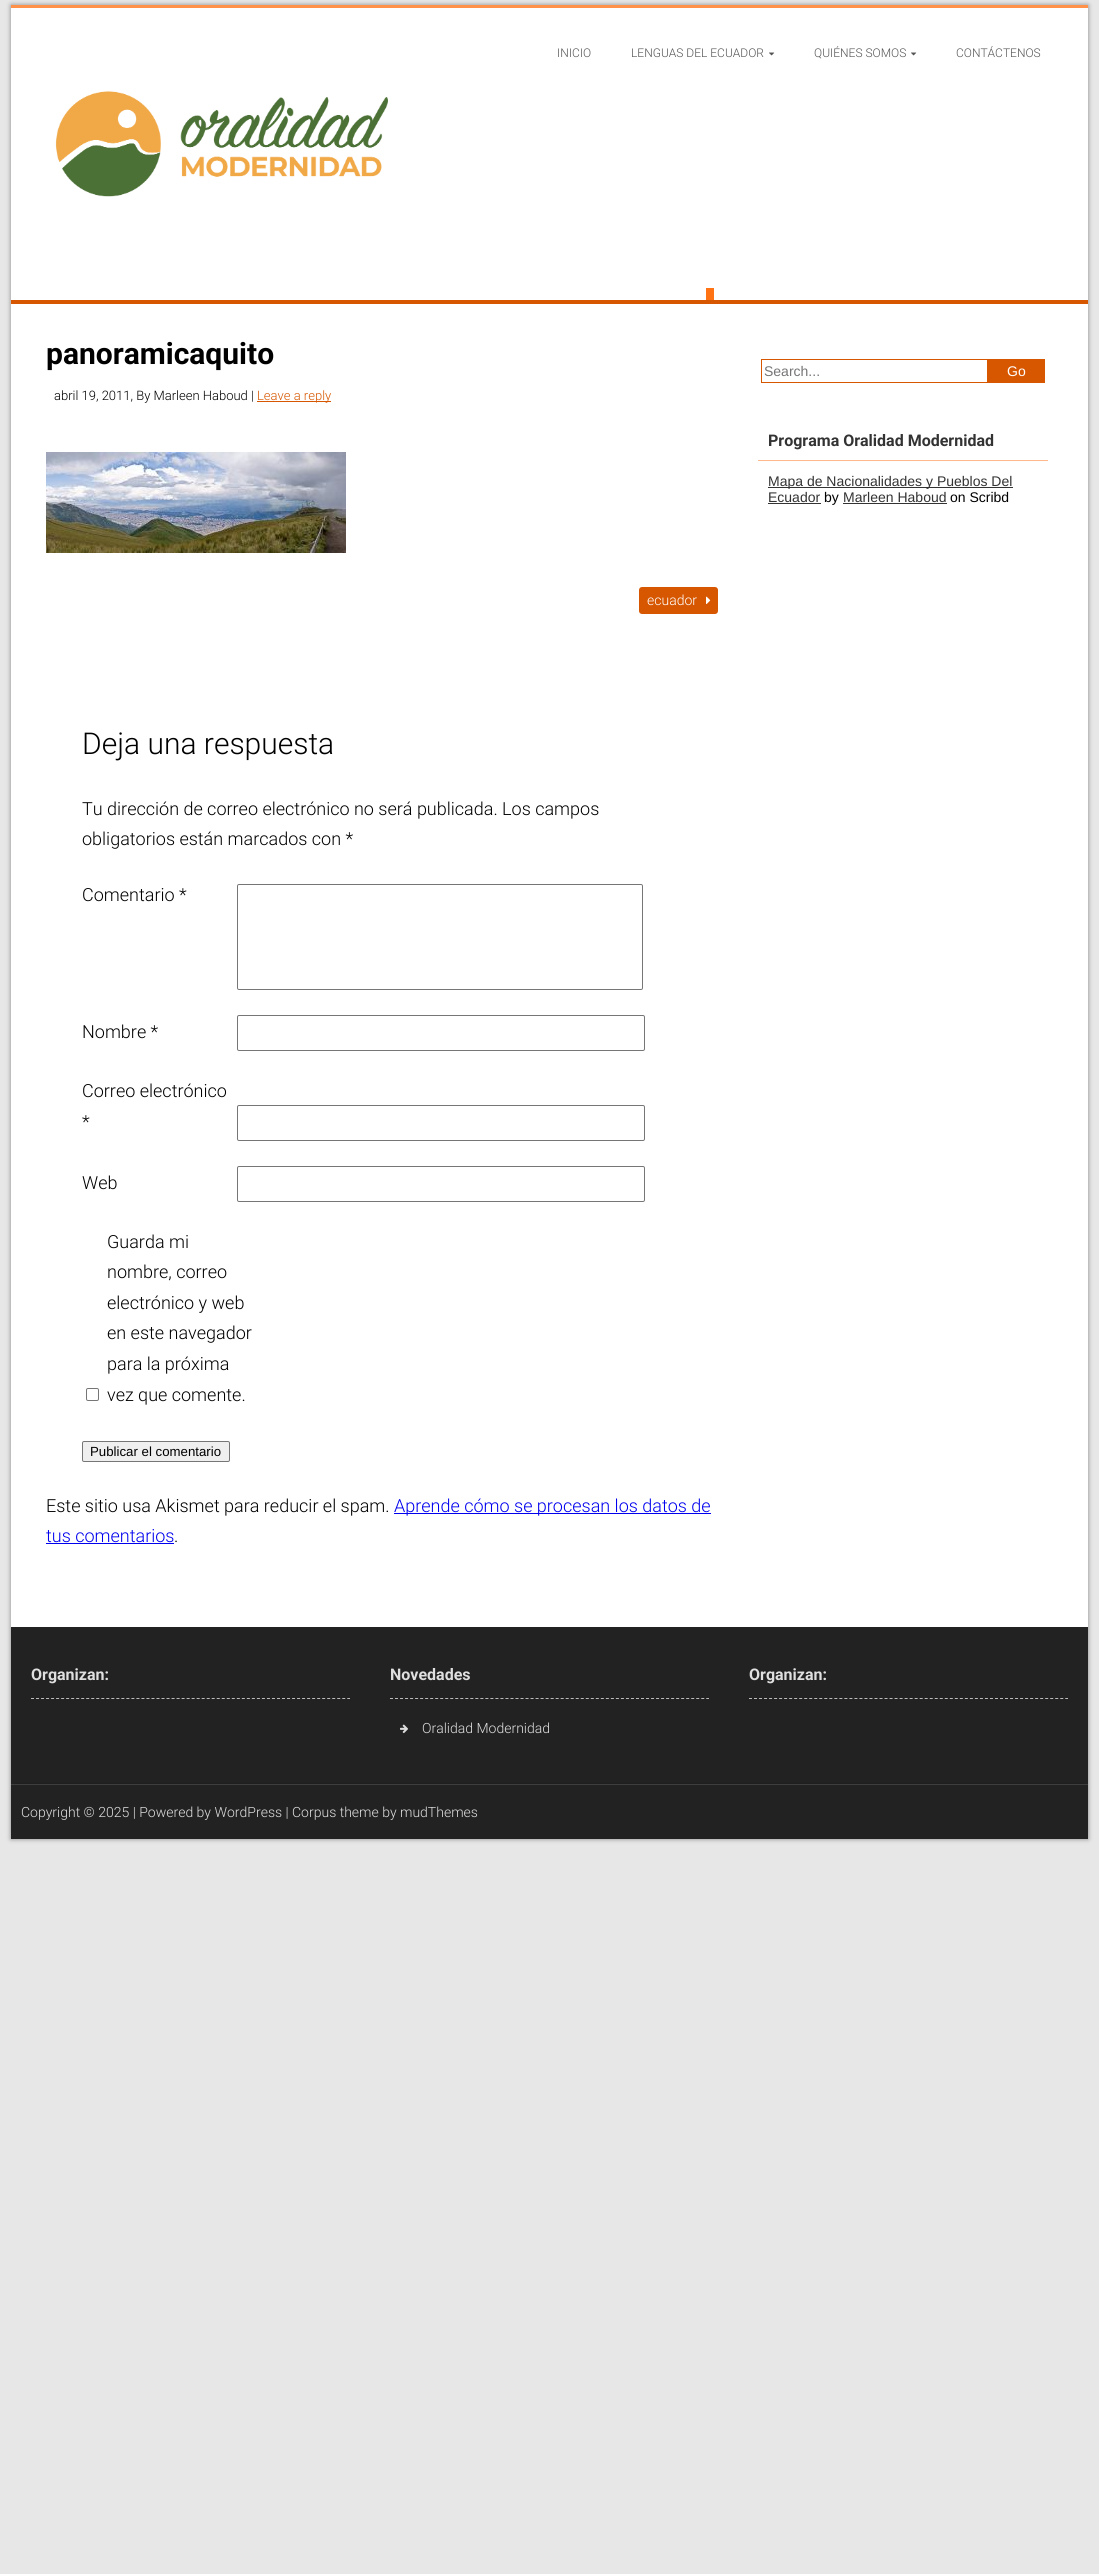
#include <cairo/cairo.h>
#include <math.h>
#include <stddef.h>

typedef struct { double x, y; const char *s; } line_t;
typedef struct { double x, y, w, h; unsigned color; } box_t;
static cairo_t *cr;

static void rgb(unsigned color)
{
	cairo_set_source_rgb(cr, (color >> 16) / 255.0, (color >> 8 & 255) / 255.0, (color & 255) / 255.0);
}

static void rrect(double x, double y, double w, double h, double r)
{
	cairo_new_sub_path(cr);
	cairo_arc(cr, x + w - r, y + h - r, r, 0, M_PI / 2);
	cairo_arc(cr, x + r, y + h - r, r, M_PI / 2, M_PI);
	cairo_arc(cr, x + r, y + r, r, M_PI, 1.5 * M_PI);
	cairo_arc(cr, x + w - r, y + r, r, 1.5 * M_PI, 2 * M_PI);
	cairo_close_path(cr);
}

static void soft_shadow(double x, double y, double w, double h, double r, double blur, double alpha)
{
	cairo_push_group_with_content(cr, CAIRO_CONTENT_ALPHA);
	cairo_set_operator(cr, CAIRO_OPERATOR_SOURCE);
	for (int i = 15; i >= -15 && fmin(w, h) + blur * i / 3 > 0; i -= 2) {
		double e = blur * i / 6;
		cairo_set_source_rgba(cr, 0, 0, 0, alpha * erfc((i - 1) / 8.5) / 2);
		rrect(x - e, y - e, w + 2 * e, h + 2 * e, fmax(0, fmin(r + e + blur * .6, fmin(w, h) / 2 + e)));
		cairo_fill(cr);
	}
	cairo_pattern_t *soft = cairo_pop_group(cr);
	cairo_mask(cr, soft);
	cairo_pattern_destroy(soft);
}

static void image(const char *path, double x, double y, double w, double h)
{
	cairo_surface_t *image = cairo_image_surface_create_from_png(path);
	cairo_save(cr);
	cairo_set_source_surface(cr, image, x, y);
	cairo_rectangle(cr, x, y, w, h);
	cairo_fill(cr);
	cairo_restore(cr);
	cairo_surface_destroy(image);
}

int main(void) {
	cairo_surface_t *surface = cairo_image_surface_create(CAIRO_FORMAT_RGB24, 1099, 2574);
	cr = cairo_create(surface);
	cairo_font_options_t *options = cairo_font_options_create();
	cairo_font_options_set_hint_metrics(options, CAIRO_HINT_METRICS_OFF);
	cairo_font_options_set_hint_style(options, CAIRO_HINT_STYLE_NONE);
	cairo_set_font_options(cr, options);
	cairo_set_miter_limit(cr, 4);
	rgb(0xe7e7e7);
	cairo_paint(cr);
	rgb(0x888888);
	soft_shadow(11, 5, 1077, 1834, 0, 2.5, 1);
	rgb(0xffffff);
	cairo_rectangle(cr, 11, 8, 1077, 1619);
	cairo_fill(cr);
	rgb(0xff9248);
	cairo_rectangle(cr, 11, 5, 1077, 3);
	cairo_fill(cr);
	image("img/1.png", 769, 52, 6, 4);
	image("img/1.png", 911, 52, 6, 4);
	image("img/2.png", 55, 91, 333, 106);
	{
		static const box_t items[] = {
			{11, 300, 1077, 4, 0xd75600},
			{706, 288, 8, 12, 0xff7315},
			{257, 401, 74, 1, 0xd75600},
		};
		for (size_t i = 0; i < sizeof items / sizeof *items; i++) {
			rgb(items[i].color);
			cairo_rectangle(cr, items[i].x, items[i].y, items[i].w, items[i].h);
			cairo_fill(cr);
		}
	}
	image("img/3.png", 46, 452, 300, 101);
	rrect(639, 587, 79, 27, 3);
	cairo_fill(cr);
	image("img/4.png", 706, 596, 5, 8);
	rrect(237.5, 884.5, 405, 105, 1.5);
	rgb(0x767676);
	cairo_set_line_width(cr, 1);
	cairo_stroke(cr);
	rrect(237.5, 1015.5, 407, 35, 1.5);
	cairo_stroke(cr);
	rrect(237.5, 1105.5, 407, 35, 1.5);
	cairo_stroke(cr);
	rrect(237.5, 1166.5, 407, 35, 1.5);
	cairo_stroke(cr);
	rrect(86.5, 1388.5, 12, 12, 1.5);
	cairo_stroke(cr);
	rgb(0xefefef);
	rrect(82.5, 1441.5, 147, 20, 1.5);
	cairo_fill_preserve(cr);
	rgb(0x767676);
	cairo_stroke(cr);
	rgb(0x0000ee);
	cairo_rectangle(cr, 394, 1513, 317, 1);
	cairo_fill(cr);
	cairo_rectangle(cr, 46, 1543, 128, 1);
	cairo_fill(cr);
	cairo_rectangle(cr, 761.5, 359.5, 226, 23);
	rgb(0xd75600);
	cairo_stroke(cr);
	{
		static const box_t items[] = {
			{988, 359, 57, 24, 0xd75600},
			{758, 460, 290, 1, 0xffb98a},
			{768, 487, 245, 1, 0x333333},
			{768, 503, 53, 1, 0x333333},
			{843, 503, 104, 1, 0x333333},
			{11, 1627, 1077, 157, 0x222222},
		};
		for (size_t i = 0; i < sizeof items / sizeof *items; i++) {
			rgb(items[i].color);
			cairo_rectangle(cr, items[i].x, items[i].y, items[i].w, items[i].h);
			cairo_fill(cr);
		}
	}
	cairo_new_path(cr);
	cairo_move_to(cr, 31, 1698.5);
	cairo_line_to(cr, 350, 1698.5);
	rgb(0xbbbbbb);
	cairo_set_dash(cr, (double[]){3, 2.02}, 2, 0);
	cairo_stroke(cr);
	cairo_new_path(cr);
	cairo_move_to(cr, 390, 1698.5);
	cairo_line_to(cr, 709, 1698.5);
	cairo_stroke(cr);
	image("img/5.png", 400, 1724, 8, 10);
	cairo_new_path(cr);
	cairo_move_to(cr, 749, 1698.5);
	cairo_line_to(cr, 1068, 1698.5);
	cairo_stroke(cr);
	rgb(0x000000);
	soft_shadow(16, 1787, 1067, 45, 0, 2.5, 1);
	rgb(0x222222);
	cairo_rectangle(cr, 11, 1785, 1077, 54);
	cairo_fill(cr);
	rgb(0x3e3e3e);
	cairo_rectangle(cr, 11, 1784, 1077, 1);
	cairo_fill(cr);
	cairo_select_font_face(cr, "Roboto Light", CAIRO_FONT_SLANT_NORMAL, CAIRO_FONT_WEIGHT_NORMAL);
	cairo_set_font_size(cr, 12);
	rgb(0x555555);
	{
		static const line_t items[] = {
			{557, 57, "INICIO"},
			{631, 57, "LENGUAS DEL ECUADOR"},
			{814, 57, "QUIÉNES SOMOS"},
			{956, 57, "CONTÁCTENOS"},
		};
		for (size_t i = 0; i < sizeof items / sizeof *items; i++) {
			cairo_move_to(cr, items[i].x, items[i].y);
			cairo_show_text(cr, items[i].s);
		}
	}
	cairo_select_font_face(cr, "Roboto", CAIRO_FONT_SLANT_NORMAL, CAIRO_FONT_WEIGHT_BOLD);
	cairo_set_font_size(cr, 30);
	rgb(0x000000);
	cairo_move_to(cr, 46, 364);
	cairo_show_text(cr, "panoramicaquito");
	cairo_select_font_face(cr, "Roboto Light", CAIRO_FONT_SLANT_NORMAL, CAIRO_FONT_WEIGHT_NORMAL);
	cairo_set_font_size(cr, 13);
	cairo_move_to(cr, 54, 400);
	cairo_show_text(cr, "abril 19, 2011, By Marleen Haboud |");
	rgb(0xd75600);
	cairo_move_to(cr, 257, 400);
	cairo_show_text(cr, "Leave a reply");
	cairo_set_font_size(cr, 14);
	rgb(0xffffff);
	cairo_move_to(cr, 647, 605);
	cairo_show_text(cr, "ecuador");
	cairo_set_font_size(cr, 30);
	rgb(0x000000);
	cairo_move_to(cr, 82, 754);
	cairo_show_text(cr, "Deja una respuesta");
	cairo_set_font_size(cr, 18);
	{
		static const line_t items[] = {
			{82, 815, "Tu dirección de correo electrónico no será publicada. Los campos"},
			{82, 845, "obligatorios están marcados con *"},
			{82, 901, "Comentario *"},
			{82, 1038, "Nombre *"},
			{82, 1097, "Correo electrónico"},
			{82, 1128, "*"},
			{82, 1189, "Web"},
			{107, 1248, "Guarda mi"},
			{107, 1278, "nombre, correo"},
			{107, 1309, "electrónico y web"},
			{107, 1339, "en este navegador"},
			{107, 1370, "para la próxima"},
			{107, 1401, "vez que comente."},
		};
		for (size_t i = 0; i < sizeof items / sizeof *items; i++) {
			cairo_move_to(cr, items[i].x, items[i].y);
			cairo_show_text(cr, items[i].s);
		}
	}
	cairo_select_font_face(cr, "Liberation Sans", CAIRO_FONT_SLANT_NORMAL, CAIRO_FONT_WEIGHT_NORMAL);
	cairo_set_font_size(cr, 13.25);
	cairo_move_to(cr, 90, 1456);
	cairo_show_text(cr, "Publicar el comentario");
	cairo_select_font_face(cr, "Roboto Light", CAIRO_FONT_SLANT_NORMAL, CAIRO_FONT_WEIGHT_NORMAL);
	cairo_set_font_size(cr, 18);
	cairo_move_to(cr, 46, 1512);
	cairo_show_text(cr, "Este sitio usa Akismet para reducir el spam.");
	rgb(0x0000ee);
	cairo_move_to(cr, 394, 1512);
	cairo_show_text(cr, "Aprende cómo se procesan los datos de");
	cairo_move_to(cr, 46, 1542);
	cairo_show_text(cr, "tus comentarios");
	rgb(0x000000);
	cairo_move_to(cr, 174, 1542);
	cairo_show_text(cr, ".");
	cairo_select_font_face(cr, "Liberation Sans", CAIRO_FONT_SLANT_NORMAL, CAIRO_FONT_WEIGHT_NORMAL);
	cairo_set_font_size(cr, 14);
	rgb(0x757575);
	cairo_move_to(cr, 764, 376);
	cairo_show_text(cr, "Search...");
	rgb(0xffffff);
	cairo_move_to(cr, 1007, 376);
	cairo_show_text(cr, "Go");
	cairo_select_font_face(cr, "Roboto", CAIRO_FONT_SLANT_NORMAL, CAIRO_FONT_WEIGHT_BOLD);
	cairo_set_font_size(cr, 16);
	rgb(0x333333);
	cairo_move_to(cr, 768, 446);
	cairo_show_text(cr, "Programa Oralidad Modernidad");
	cairo_select_font_face(cr, "Liberation Sans", CAIRO_FONT_SLANT_NORMAL, CAIRO_FONT_WEIGHT_NORMAL);
	cairo_set_font_size(cr, 14);
	cairo_move_to(cr, 768, 486);
	cairo_show_text(cr, "Mapa de Nacionalidades y Pueblos Del");
	cairo_move_to(cr, 768, 502);
	cairo_show_text(cr, "Ecuador");
	rgb(0x000000);
	cairo_move_to(cr, 824, 502);
	cairo_show_text(cr, "by");
	rgb(0x333333);
	cairo_move_to(cr, 843, 502);
	cairo_show_text(cr, "Marleen Haboud");
	rgb(0x000000);
	cairo_move_to(cr, 950, 502);
	cairo_show_text(cr, "on Scribd");
	cairo_select_font_face(cr, "Roboto", CAIRO_FONT_SLANT_NORMAL, CAIRO_FONT_WEIGHT_BOLD);
	cairo_set_font_size(cr, 16);
	rgb(0xdfdfdf);
	cairo_move_to(cr, 31, 1680);
	cairo_show_text(cr, "Organizan:");
	cairo_move_to(cr, 390, 1680);
	cairo_show_text(cr, "Novedades");
	cairo_select_font_face(cr, "Roboto Light", CAIRO_FONT_SLANT_NORMAL, CAIRO_FONT_WEIGHT_NORMAL);
	cairo_set_font_size(cr, 14);
	cairo_move_to(cr, 422, 1733);
	cairo_show_text(cr, "Oralidad Modernidad");
	cairo_select_font_face(cr, "Roboto", CAIRO_FONT_SLANT_NORMAL, CAIRO_FONT_WEIGHT_BOLD);
	cairo_set_font_size(cr, 16);
	cairo_move_to(cr, 749, 1680);
	cairo_show_text(cr, "Organizan:");
	cairo_select_font_face(cr, "Roboto Light", CAIRO_FONT_SLANT_NORMAL, CAIRO_FONT_WEIGHT_NORMAL);
	cairo_set_font_size(cr, 14);
	cairo_move_to(cr, 21, 1817);
	cairo_show_text(cr, "Copyright © 2025 | Powered by WordPress | Corpus theme by mudThemes");
	cairo_surface_write_to_png(surface, "page.png");
	cairo_font_options_destroy(options);
	cairo_destroy(cr);
	cairo_surface_destroy(surface);
	return 0;
}
